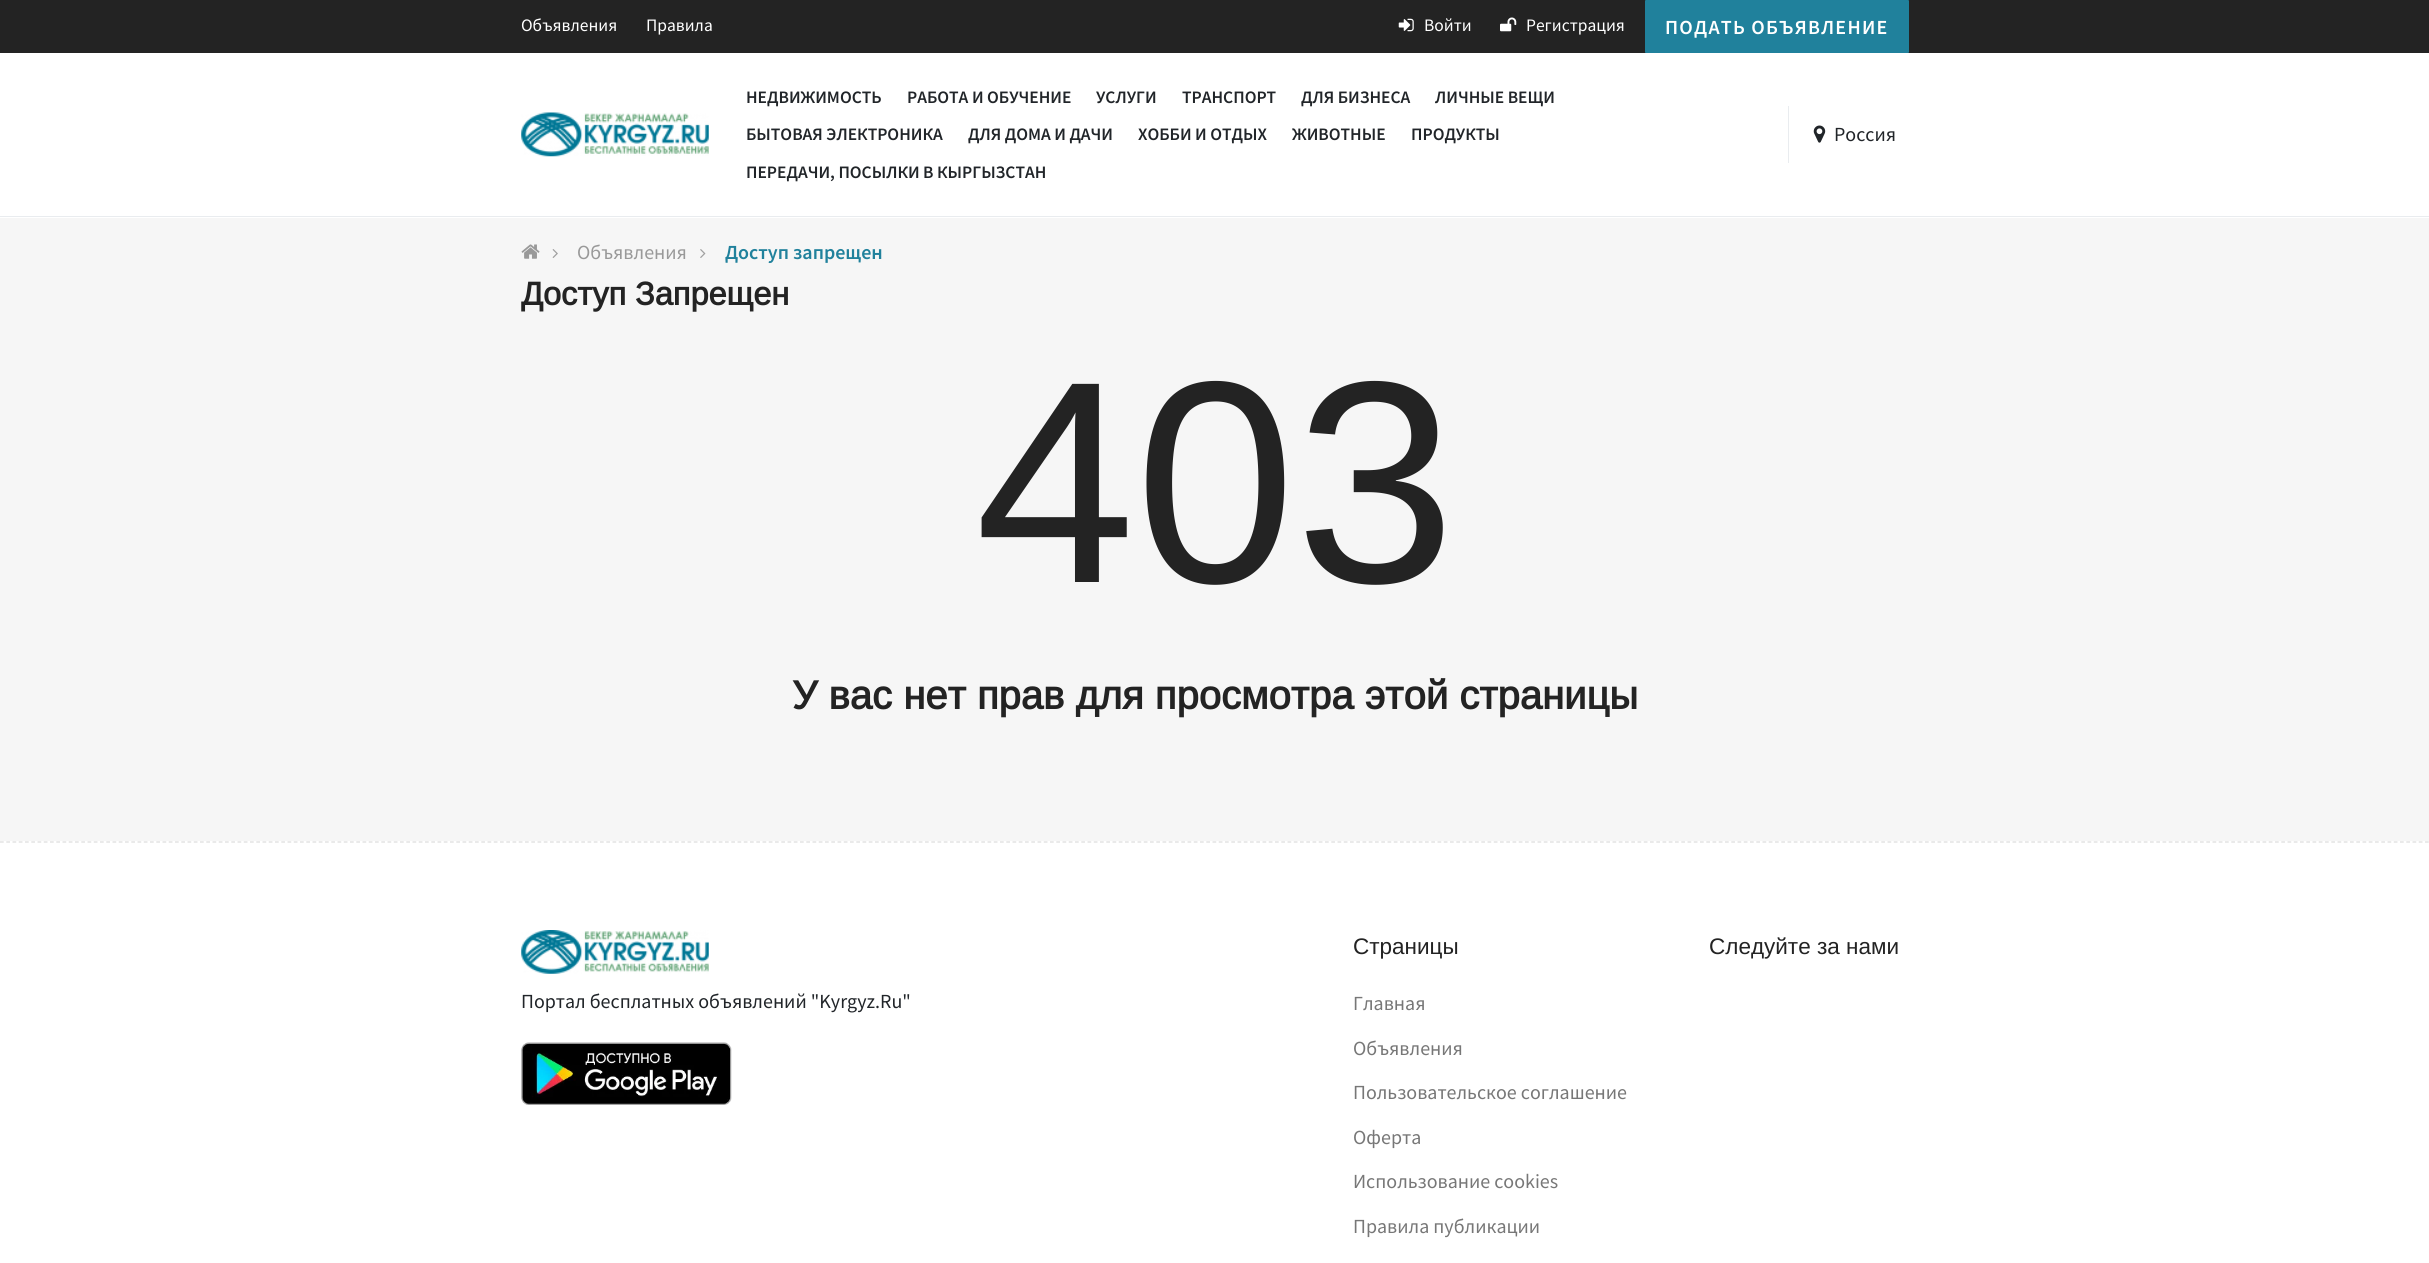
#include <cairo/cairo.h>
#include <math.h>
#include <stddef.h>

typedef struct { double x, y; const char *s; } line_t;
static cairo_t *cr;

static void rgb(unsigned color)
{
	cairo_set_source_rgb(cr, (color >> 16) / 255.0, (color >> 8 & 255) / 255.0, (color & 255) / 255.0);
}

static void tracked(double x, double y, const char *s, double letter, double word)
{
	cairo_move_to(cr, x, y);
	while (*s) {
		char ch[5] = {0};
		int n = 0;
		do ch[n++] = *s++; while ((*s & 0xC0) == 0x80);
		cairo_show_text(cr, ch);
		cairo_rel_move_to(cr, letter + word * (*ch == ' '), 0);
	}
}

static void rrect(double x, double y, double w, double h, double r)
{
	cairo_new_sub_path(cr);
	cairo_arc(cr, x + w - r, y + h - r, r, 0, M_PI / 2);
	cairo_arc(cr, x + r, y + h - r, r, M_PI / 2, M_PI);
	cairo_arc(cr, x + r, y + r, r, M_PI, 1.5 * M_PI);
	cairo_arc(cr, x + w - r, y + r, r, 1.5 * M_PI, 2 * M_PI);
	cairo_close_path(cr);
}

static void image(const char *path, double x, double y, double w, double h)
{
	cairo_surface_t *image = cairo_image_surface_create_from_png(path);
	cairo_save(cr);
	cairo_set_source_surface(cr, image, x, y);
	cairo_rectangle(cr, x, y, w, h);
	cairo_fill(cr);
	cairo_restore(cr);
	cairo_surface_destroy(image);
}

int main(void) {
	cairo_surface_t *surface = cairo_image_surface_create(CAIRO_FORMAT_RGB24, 2429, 1263);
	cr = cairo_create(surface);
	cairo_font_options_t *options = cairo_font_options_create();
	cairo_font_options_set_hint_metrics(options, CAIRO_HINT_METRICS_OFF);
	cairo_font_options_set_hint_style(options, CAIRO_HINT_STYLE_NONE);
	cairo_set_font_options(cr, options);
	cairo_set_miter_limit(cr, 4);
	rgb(0xf6f6f6);
	cairo_paint(cr);
	rgb(0x232323);
	cairo_rectangle(cr, 0, 0, 2429, 53);
	cairo_fill(cr);
	image("img/1.png", 1398, 18, 16, 14);
	image("img/2.png", 1500, 17, 17, 15);
	rgb(0x20819c);
	rrect(1645.5, 0.5, 263, 52, 0.5);
	cairo_fill_preserve(cr);
	cairo_set_line_width(cr, 1);
	cairo_stroke(cr);
	rgb(0xffffff);
	cairo_rectangle(cr, 0, 53, 2429, 165);
	cairo_fill(cr);
	rgb(0xe9ecef);
	cairo_rectangle(cr, 0, 216, 2429, 1);
	cairo_fill(cr);
	image("img/3.png", 521, 112, 188, 45);
	cairo_rectangle(cr, 1788, 106, 1, 57);
	cairo_fill(cr);
	image("img/4.png", 1813, 125, 13, 18);
	image("img/5.png", 521, 244, 19, 15);
	image("img/6.png", 552, 249, 6, 9);
	image("img/7.png", 700, 249, 6, 9);
	rgb(0xffffff);
	cairo_rectangle(cr, 0, 841, 2429, 422);
	cairo_fill(cr);
	cairo_new_path(cr);
	cairo_move_to(cr, 0, 842);
	cairo_line_to(cr, 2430, 842);
	rgb(0xdddddd);
	cairo_set_line_width(cr, 1.2);
	cairo_set_dash(cr, (double[]){3.75, 2.5}, 2, 0);
	cairo_stroke(cr);
	image("img/8.png", 521, 930, 188, 44);
	image("img/9.png", 521, 1042, 211, 63);
	cairo_select_font_face(cr, "Source Sans Pro", CAIRO_FONT_SLANT_NORMAL, CAIRO_FONT_WEIGHT_NORMAL);
	cairo_set_font_size(cr, 17.5);
	rgb(0xffffff);
	{
		static const line_t items[] = {
			{521, 31, "Объявления"},
			{646, 31, "Правила"},
			{1424, 31, "Войти"},
			{1526, 31, "Регистрация"},
		};
		for (size_t i = 0; i < sizeof items / sizeof *items; i++) {
			cairo_move_to(cr, items[i].x, items[i].y);
			cairo_show_text(cr, items[i].s);
		}
	}
	cairo_select_font_face(cr, "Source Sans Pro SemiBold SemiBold", CAIRO_FONT_SLANT_NORMAL, CAIRO_FONT_WEIGHT_NORMAL);
	cairo_set_font_size(cr, 20);
	tracked(1665, 34, "ПОДАТЬ ОБЪЯВЛЕНИЕ", 1.25, 0);
	cairo_set_font_size(cr, 17.5);
	rgb(0x212529);
	{
		static const line_t items[] = {
			{746, 103, "НЕДВИЖИМОСТЬ"},
			{907, 103, "РАБОТА И ОБУЧЕНИЕ"},
			{1096, 103, "УСЛУГИ"},
			{1182, 103, "ТРАНСПОРТ"},
			{1301, 103, "ДЛЯ БИЗНЕСА"},
			{1435, 103, "ЛИЧНЫЕ ВЕЩИ"},
			{746, 140, "БЫТОВАЯ ЭЛЕКТРОНИКА"},
			{968, 140, "ДЛЯ ДОМА И ДАЧИ"},
			{1138, 140, "ХОББИ И ОТДЫХ"},
			{1292, 140, "ЖИВОТНЫЕ"},
			{1411, 140, "ПРОДУКТЫ"},
			{746, 178, "ПЕРЕДАЧИ, ПОСЫЛКИ В КЫРГЫЗСТАН"},
		};
		for (size_t i = 0; i < sizeof items / sizeof *items; i++) {
			cairo_move_to(cr, items[i].x, items[i].y);
			cairo_show_text(cr, items[i].s);
		}
	}
	cairo_select_font_face(cr, "Source Sans Pro", CAIRO_FONT_SLANT_NORMAL, CAIRO_FONT_WEIGHT_NORMAL);
	cairo_set_font_size(cr, 20);
	cairo_move_to(cr, 1834, 141);
	cairo_show_text(cr, "Россия");
	rgb(0x999999);
	cairo_move_to(cr, 577, 259);
	cairo_show_text(cr, "Объявления");
	cairo_select_font_face(cr, "Source Sans Pro SemiBold SemiBold", CAIRO_FONT_SLANT_NORMAL, CAIRO_FONT_WEIGHT_NORMAL);
	rgb(0x20819c);
	cairo_move_to(cr, 725, 259);
	cairo_show_text(cr, "Доступ запрещен");
	cairo_select_font_face(cr, "Arimo", CAIRO_FONT_SLANT_NORMAL, CAIRO_FONT_WEIGHT_BOLD);
	cairo_set_font_size(cr, 32.5);
	rgb(0x232323);
	cairo_move_to(cr, 521, 305);
	cairo_show_text(cr, "Доступ Запрещен");
	cairo_select_font_face(cr, "Arimo", CAIRO_FONT_SLANT_NORMAL, CAIRO_FONT_WEIGHT_NORMAL);
	cairo_set_font_size(cr, 288);
	cairo_move_to(cr, 975, 582);
	cairo_show_text(cr, "403");
	cairo_select_font_face(cr, "Arimo", CAIRO_FONT_SLANT_NORMAL, CAIRO_FONT_WEIGHT_BOLD);
	cairo_set_font_size(cr, 40);
	cairo_move_to(cr, 792, 709);
	cairo_show_text(cr, "У вас нет прав для просмотра этой страницы");
	cairo_select_font_face(cr, "Source Sans Pro", CAIRO_FONT_SLANT_NORMAL, CAIRO_FONT_WEIGHT_NORMAL);
	cairo_set_font_size(cr, 20);
	rgb(0x212529);
	cairo_move_to(cr, 521, 1008);
	cairo_show_text(cr, "Портал бесплатных объявлений \"Kyrgyz.Ru\"");
	cairo_select_font_face(cr, "Arimo", CAIRO_FONT_SLANT_NORMAL, CAIRO_FONT_WEIGHT_NORMAL);
	cairo_set_font_size(cr, 22.5);
	rgb(0x232323);
	cairo_move_to(cr, 1353, 954);
	cairo_show_text(cr, "Страницы");
	cairo_select_font_face(cr, "Source Sans Pro", CAIRO_FONT_SLANT_NORMAL, CAIRO_FONT_WEIGHT_NORMAL);
	cairo_set_font_size(cr, 20);
	rgb(0x777777);
	{
		static const line_t items[] = {
			{1353, 1010, "Главная"},
			{1353, 1055, "Объявления"},
			{1353, 1099, "Пользовательское соглашение"},
			{1353, 1144, "Оферта"},
			{1353, 1188, "Использование cookies"},
			{1353, 1233, "Правила публикации"},
		};
		for (size_t i = 0; i < sizeof items / sizeof *items; i++) {
			cairo_move_to(cr, items[i].x, items[i].y);
			cairo_show_text(cr, items[i].s);
		}
	}
	cairo_select_font_face(cr, "Arimo", CAIRO_FONT_SLANT_NORMAL, CAIRO_FONT_WEIGHT_NORMAL);
	cairo_set_font_size(cr, 22.5);
	rgb(0x232323);
	cairo_move_to(cr, 1709, 954);
	cairo_show_text(cr, "Следуйте за нами");
	cairo_surface_write_to_png(surface, "page.png");
	cairo_font_options_destroy(options);
	cairo_destroy(cr);
	cairo_surface_destroy(surface);
	return 0;
}
